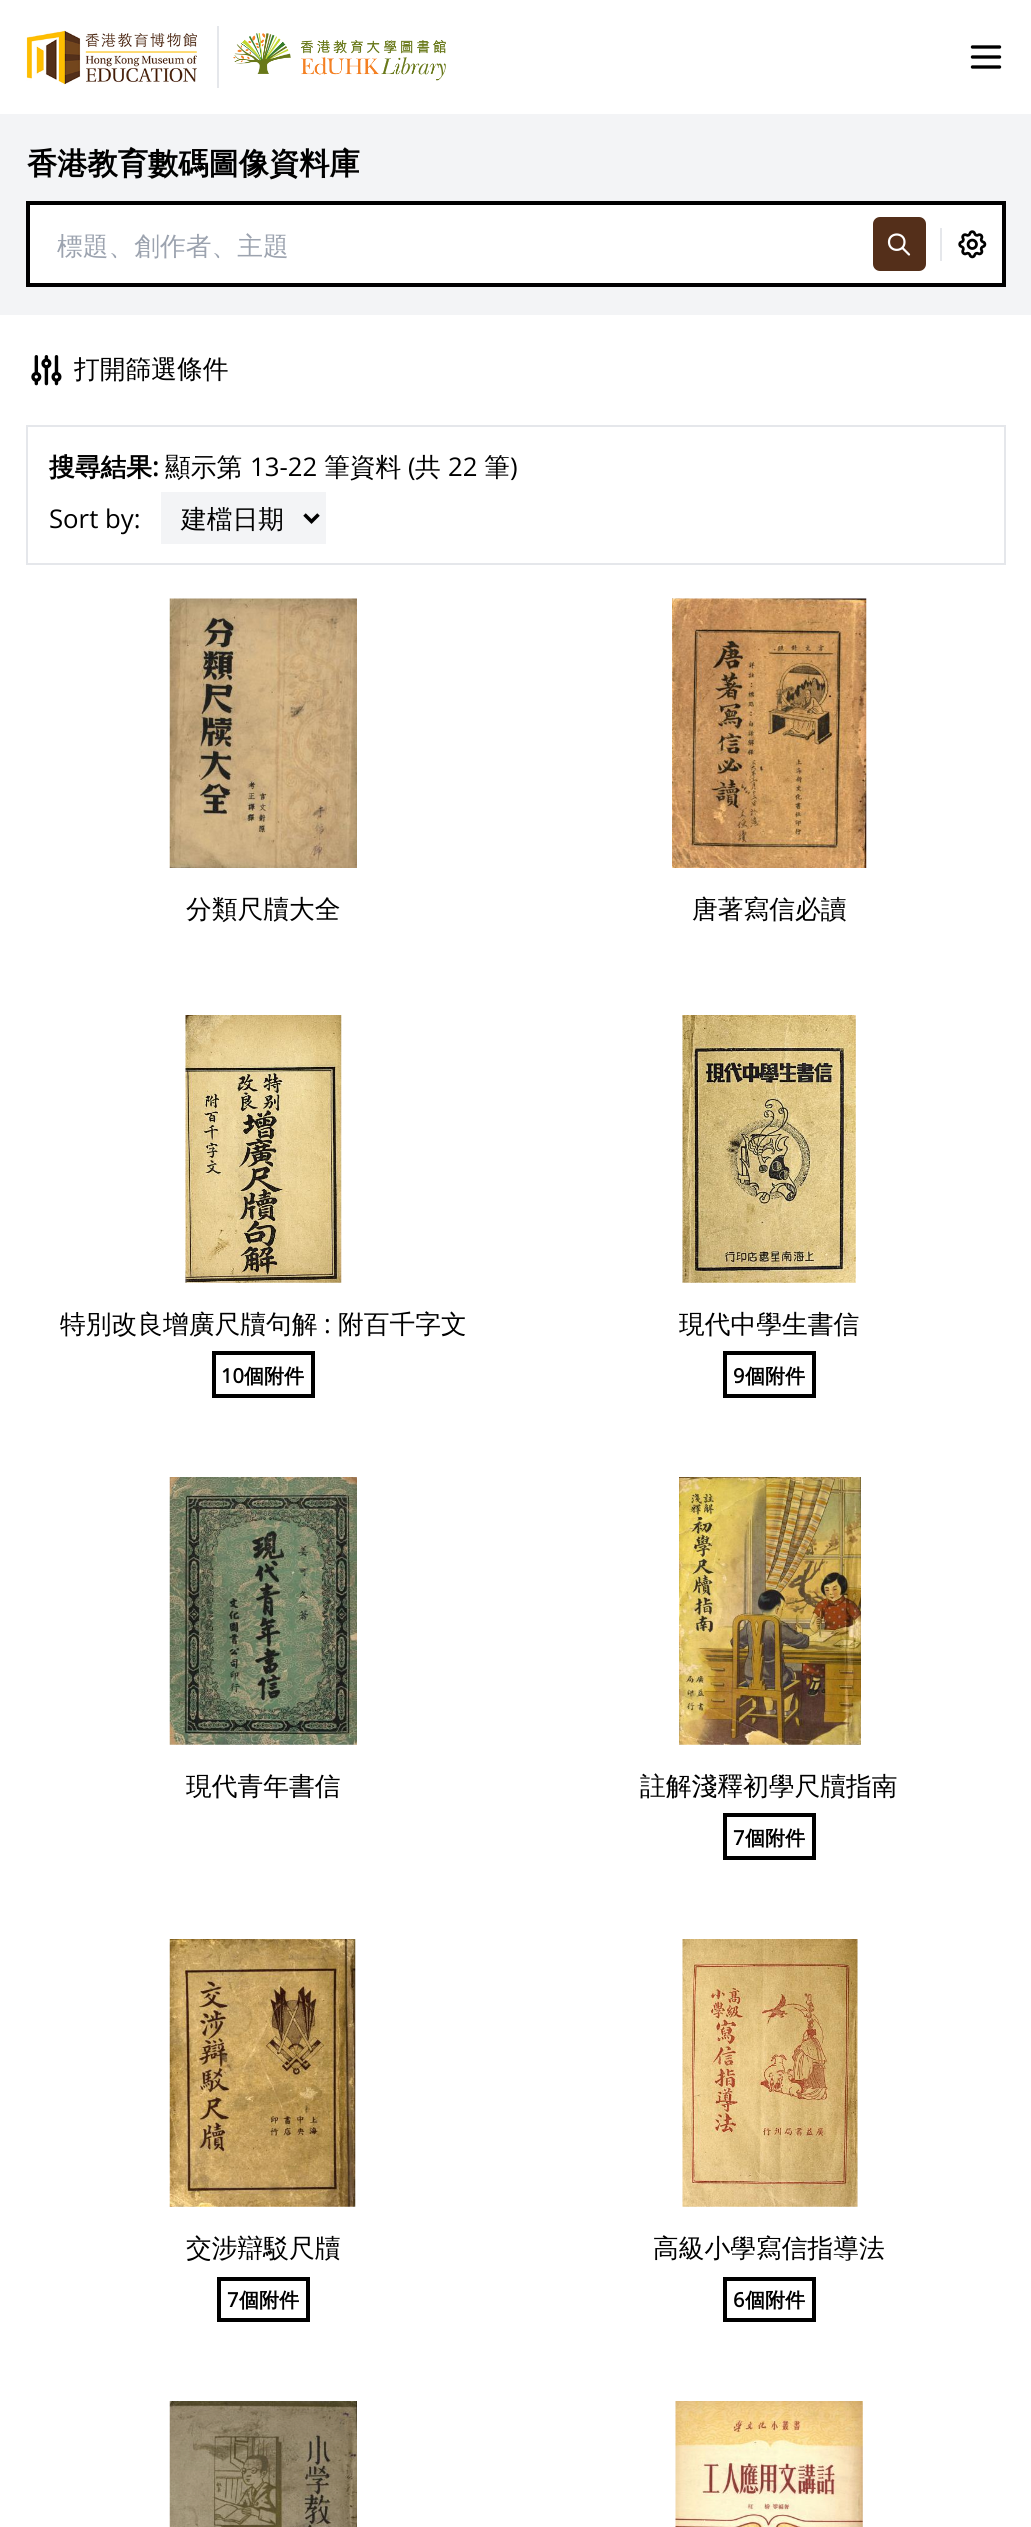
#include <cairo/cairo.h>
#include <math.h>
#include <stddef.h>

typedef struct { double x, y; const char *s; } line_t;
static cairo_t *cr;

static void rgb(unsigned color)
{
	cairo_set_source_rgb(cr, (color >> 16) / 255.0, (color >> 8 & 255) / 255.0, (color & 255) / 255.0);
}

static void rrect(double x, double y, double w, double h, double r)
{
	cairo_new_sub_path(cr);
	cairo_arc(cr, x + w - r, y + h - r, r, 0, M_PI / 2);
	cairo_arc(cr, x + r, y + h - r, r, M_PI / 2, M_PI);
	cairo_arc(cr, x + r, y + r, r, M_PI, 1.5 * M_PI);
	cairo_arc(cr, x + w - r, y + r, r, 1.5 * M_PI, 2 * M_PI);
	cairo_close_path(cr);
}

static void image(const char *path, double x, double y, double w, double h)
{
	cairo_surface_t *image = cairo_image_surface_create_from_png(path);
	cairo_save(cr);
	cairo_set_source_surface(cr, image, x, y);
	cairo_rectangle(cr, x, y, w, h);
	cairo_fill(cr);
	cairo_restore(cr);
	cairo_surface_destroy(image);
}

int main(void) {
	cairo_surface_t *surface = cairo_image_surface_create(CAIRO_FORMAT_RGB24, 1031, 2527);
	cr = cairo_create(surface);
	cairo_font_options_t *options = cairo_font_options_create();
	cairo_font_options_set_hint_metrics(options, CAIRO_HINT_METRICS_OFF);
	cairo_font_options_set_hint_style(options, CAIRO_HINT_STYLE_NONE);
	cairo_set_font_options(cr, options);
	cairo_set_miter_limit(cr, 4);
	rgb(0xffffff);
	cairo_paint(cr);
	image("img/1.png", 26, 30, 171, 55);
	rgb(0xe5e7eb);
	cairo_rectangle(cr, 217, 26, 2, 62);
	cairo_fill(cr);
	image("img/2.png", 233, 33, 213, 48);
	cairo_new_path(cr);
	cairo_move_to(cr, 972.5, 47);
	cairo_line_to(cr, 999.5, 47);
	cairo_move_to(cr, 972.5, 57);
	cairo_line_to(cr, 999.5, 57);
	cairo_move_to(cr, 972.5, 67);
	cairo_line_to(cr, 999.5, 67);
	rgb(0x000000);
	cairo_set_line_width(cr, 3.4);
	cairo_set_line_cap(cr, CAIRO_LINE_CAP_ROUND);
	cairo_set_line_join(cr, CAIRO_LINE_JOIN_ROUND);
	cairo_stroke(cr);
	rgb(0xf3f4f6);
	cairo_rectangle(cr, 0, 114, 1031, 201);
	cairo_fill(cr);
	rgb(0xffffff);
	cairo_rectangle(cr, 28, 203, 976, 82);
	cairo_fill_preserve(cr);
	rgb(0x000000);
	cairo_set_line_width(cr, 4);
	cairo_set_line_cap(cr, CAIRO_LINE_CAP_BUTT);
	cairo_set_line_join(cr, CAIRO_LINE_JOIN_MITER);
	cairo_stroke(cr);
	rgb(0x542f1a);
	rrect(873, 217, 53, 54, 7);
	cairo_fill(cr);
	cairo_new_path(cr);
	cairo_move_to(cr, 909, 254.5);
	cairo_line_to(cr, 902.5, 248);
	cairo_move_to(cr, 904.5, 242);
	cairo_curve_to(cr, 904.5, 252.5, 889, 252.5, 889, 242);
	cairo_curve_to(cr, 889, 232, 904.5, 232, 904.5, 242);
	cairo_close_path(cr);
	rgb(0xffffff);
	cairo_set_line_width(cr, 2.2);
	cairo_set_line_cap(cr, CAIRO_LINE_CAP_ROUND);
	cairo_set_line_join(cr, CAIRO_LINE_JOIN_ROUND);
	cairo_stroke(cr);
	rgb(0xe5e7eb);
	cairo_rectangle(cr, 940, 228, 2, 33);
	cairo_fill(cr);
	image("img/3.png", 958, 230, 29, 29);
	image("img/4.png", 31, 355, 31, 31);
	cairo_rectangle(cr, 27, 426, 978, 138);
	cairo_set_line_width(cr, 2);
	cairo_set_line_cap(cr, CAIRO_LINE_CAP_BUTT);
	cairo_set_line_join(cr, CAIRO_LINE_JOIN_MITER);
	cairo_stroke(cr);
	rgb(0xf3f4f6);
	cairo_rectangle(cr, 161, 492, 165, 52);
	cairo_fill(cr);
	cairo_new_path(cr);
	cairo_move_to(cr, 304.5, 514.5);
	cairo_line_to(cr, 311.5, 521.5);
	cairo_line_to(cr, 318.5, 514.5);
	rgb(0x000000);
	cairo_set_line_width(cr, 3.5);
	cairo_stroke(cr);
	image("img/5.png", 169, 598, 188, 270);
	image("img/6.png", 672, 598, 195, 270);
	image("img/7.png", 185, 1015, 157, 268);
	cairo_rectangle(cr, 214, 1353, 99, 43);
	cairo_set_line_width(cr, 4);
	cairo_stroke(cr);
	image("img/8.png", 682, 1015, 174, 268);
	cairo_rectangle(cr, 725, 1353, 89, 43);
	cairo_stroke(cr);
	image("img/9.png", 169, 1477, 188, 268);
	image("img/10.png", 679, 1477, 182, 268);
	cairo_rectangle(cr, 725, 1815, 89, 43);
	cairo_stroke(cr);
	image("img/11.png", 169, 1939, 187, 268);
	cairo_rectangle(cr, 219, 2279, 89, 41);
	cairo_stroke(cr);
	image("img/12.png", 682, 1939, 176, 268);
	cairo_rectangle(cr, 725, 2279, 89, 41);
	cairo_stroke(cr);
	image("img/13.png", 169, 2401, 188, 126);
	image("img/14.png", 675, 2401, 188, 126);
	cairo_select_font_face(cr, "WenQuanYi Zen Hei", CAIRO_FONT_SLANT_NORMAL, CAIRO_FONT_WEIGHT_BOLD);
	cairo_set_font_size(cr, 30.25);
	cairo_move_to(cr, 27, 174);
	cairo_show_text(cr, "香港教育數碼圖像資料庫");
	cairo_select_font_face(cr, "WenQuanYi Zen Hei Medium", CAIRO_FONT_SLANT_NORMAL, CAIRO_FONT_WEIGHT_NORMAL);
	cairo_set_font_size(cr, 25.75);
	rgb(0x9ca3af);
	cairo_move_to(cr, 57, 255);
	cairo_show_text(cr, "標題、創作者、主題");
	rgb(0x000000);
	cairo_move_to(cr, 74, 378);
	cairo_show_text(cr, "打開篩選條件");
	cairo_select_font_face(cr, "WenQuanYi Zen Hei", CAIRO_FONT_SLANT_NORMAL, CAIRO_FONT_WEIGHT_BOLD);
	cairo_move_to(cr, 49, 476);
	cairo_show_text(cr, "搜尋結果");
	cairo_select_font_face(cr, "Open Sans", CAIRO_FONT_SLANT_NORMAL, CAIRO_FONT_WEIGHT_BOLD);
	cairo_move_to(cr, 152, 476);
	cairo_show_text(cr, ":");
	cairo_select_font_face(cr, "WenQuanYi Zen Hei Medium", CAIRO_FONT_SLANT_NORMAL, CAIRO_FONT_WEIGHT_NORMAL);
	cairo_move_to(cr, 165, 476);
	cairo_show_text(cr, "顯示第");
	cairo_select_font_face(cr, "Open Sans", CAIRO_FONT_SLANT_NORMAL, CAIRO_FONT_WEIGHT_NORMAL);
	cairo_move_to(cr, 250, 476);
	cairo_show_text(cr, "13-22");
	cairo_select_font_face(cr, "WenQuanYi Zen Hei Medium", CAIRO_FONT_SLANT_NORMAL, CAIRO_FONT_WEIGHT_NORMAL);
	cairo_move_to(cr, 324, 476);
	cairo_show_text(cr, "筆資料");
	cairo_select_font_face(cr, "Open Sans", CAIRO_FONT_SLANT_NORMAL, CAIRO_FONT_WEIGHT_NORMAL);
	cairo_move_to(cr, 408, 476);
	cairo_show_text(cr, "(");
	cairo_select_font_face(cr, "WenQuanYi Zen Hei Medium", CAIRO_FONT_SLANT_NORMAL, CAIRO_FONT_WEIGHT_NORMAL);
	cairo_move_to(cr, 415, 476);
	cairo_show_text(cr, "共");
	cairo_select_font_face(cr, "Open Sans", CAIRO_FONT_SLANT_NORMAL, CAIRO_FONT_WEIGHT_NORMAL);
	cairo_move_to(cr, 448, 476);
	cairo_show_text(cr, "22");
	cairo_select_font_face(cr, "WenQuanYi Zen Hei Medium", CAIRO_FONT_SLANT_NORMAL, CAIRO_FONT_WEIGHT_NORMAL);
	cairo_move_to(cr, 484, 476);
	cairo_show_text(cr, "筆");
	cairo_select_font_face(cr, "Open Sans", CAIRO_FONT_SLANT_NORMAL, CAIRO_FONT_WEIGHT_NORMAL);
	cairo_move_to(cr, 510, 476);
	cairo_show_text(cr, ")");
	cairo_move_to(cr, 49, 528);
	cairo_show_text(cr, "Sort by:");
	cairo_select_font_face(cr, "WenQuanYi Zen Hei Medium", CAIRO_FONT_SLANT_NORMAL, CAIRO_FONT_WEIGHT_NORMAL);
	{
		static const line_t items[] = {
			{181, 528, "建檔日期"},
			{186, 918, "分類尺牘大全"},
			{692, 918, "唐著寫信必讀"},
			{60, 1333, "特別改良增廣尺牘句解"},
		};
		for (size_t i = 0; i < sizeof items / sizeof *items; i++) {
			cairo_move_to(cr, items[i].x, items[i].y);
			cairo_show_text(cr, items[i].s);
		}
	}
	cairo_select_font_face(cr, "Open Sans", CAIRO_FONT_SLANT_NORMAL, CAIRO_FONT_WEIGHT_NORMAL);
	cairo_move_to(cr, 324, 1333);
	cairo_show_text(cr, ":");
	cairo_select_font_face(cr, "WenQuanYi Zen Hei Medium", CAIRO_FONT_SLANT_NORMAL, CAIRO_FONT_WEIGHT_NORMAL);
	cairo_move_to(cr, 338, 1333);
	cairo_show_text(cr, "附百千字文");
	cairo_select_font_face(cr, "Open Sans", CAIRO_FONT_SLANT_NORMAL, CAIRO_FONT_WEIGHT_BOLD);
	cairo_set_font_size(cr, 20);
	cairo_move_to(cr, 221, 1383);
	cairo_show_text(cr, "10");
	cairo_select_font_face(cr, "WenQuanYi Zen Hei", CAIRO_FONT_SLANT_NORMAL, CAIRO_FONT_WEIGHT_BOLD);
	cairo_move_to(cr, 244, 1383);
	cairo_show_text(cr, "個附件");
	cairo_select_font_face(cr, "WenQuanYi Zen Hei Medium", CAIRO_FONT_SLANT_NORMAL, CAIRO_FONT_WEIGHT_NORMAL);
	cairo_set_font_size(cr, 25.75);
	cairo_move_to(cr, 679, 1333);
	cairo_show_text(cr, "現代中學生書信");
	cairo_select_font_face(cr, "Open Sans", CAIRO_FONT_SLANT_NORMAL, CAIRO_FONT_WEIGHT_BOLD);
	cairo_set_font_size(cr, 20);
	cairo_move_to(cr, 733, 1383);
	cairo_show_text(cr, "9");
	cairo_select_font_face(cr, "WenQuanYi Zen Hei", CAIRO_FONT_SLANT_NORMAL, CAIRO_FONT_WEIGHT_BOLD);
	cairo_move_to(cr, 745, 1383);
	cairo_show_text(cr, "個附件");
	cairo_select_font_face(cr, "WenQuanYi Zen Hei Medium", CAIRO_FONT_SLANT_NORMAL, CAIRO_FONT_WEIGHT_NORMAL);
	cairo_set_font_size(cr, 25.75);
	cairo_move_to(cr, 186, 1795);
	cairo_show_text(cr, "現代青年書信");
	cairo_move_to(cr, 640, 1795);
	cairo_show_text(cr, "註解淺釋初學尺牘指南");
	cairo_select_font_face(cr, "Open Sans", CAIRO_FONT_SLANT_NORMAL, CAIRO_FONT_WEIGHT_BOLD);
	cairo_set_font_size(cr, 20);
	cairo_move_to(cr, 733, 1845);
	cairo_show_text(cr, "7");
	cairo_select_font_face(cr, "WenQuanYi Zen Hei", CAIRO_FONT_SLANT_NORMAL, CAIRO_FONT_WEIGHT_BOLD);
	cairo_move_to(cr, 745, 1845);
	cairo_show_text(cr, "個附件");
	cairo_select_font_face(cr, "WenQuanYi Zen Hei Medium", CAIRO_FONT_SLANT_NORMAL, CAIRO_FONT_WEIGHT_NORMAL);
	cairo_set_font_size(cr, 25.75);
	cairo_move_to(cr, 186, 2257);
	cairo_show_text(cr, "交涉辯駁尺牘");
	cairo_select_font_face(cr, "Open Sans", CAIRO_FONT_SLANT_NORMAL, CAIRO_FONT_WEIGHT_BOLD);
	cairo_set_font_size(cr, 20);
	cairo_move_to(cr, 227, 2307);
	cairo_show_text(cr, "7");
	cairo_select_font_face(cr, "WenQuanYi Zen Hei", CAIRO_FONT_SLANT_NORMAL, CAIRO_FONT_WEIGHT_BOLD);
	cairo_move_to(cr, 239, 2307);
	cairo_show_text(cr, "個附件");
	cairo_select_font_face(cr, "WenQuanYi Zen Hei Medium", CAIRO_FONT_SLANT_NORMAL, CAIRO_FONT_WEIGHT_NORMAL);
	cairo_set_font_size(cr, 25.75);
	cairo_move_to(cr, 653, 2257);
	cairo_show_text(cr, "高級小學寫信指導法");
	cairo_select_font_face(cr, "Open Sans", CAIRO_FONT_SLANT_NORMAL, CAIRO_FONT_WEIGHT_BOLD);
	cairo_set_font_size(cr, 20);
	cairo_move_to(cr, 733, 2307);
	cairo_show_text(cr, "6");
	cairo_select_font_face(cr, "WenQuanYi Zen Hei", CAIRO_FONT_SLANT_NORMAL, CAIRO_FONT_WEIGHT_BOLD);
	cairo_move_to(cr, 745, 2307);
	cairo_show_text(cr, "個附件");
	cairo_surface_write_to_png(surface, "page.png");
	cairo_font_options_destroy(options);
	cairo_destroy(cr);
	cairo_surface_destroy(surface);
	return 0;
}
